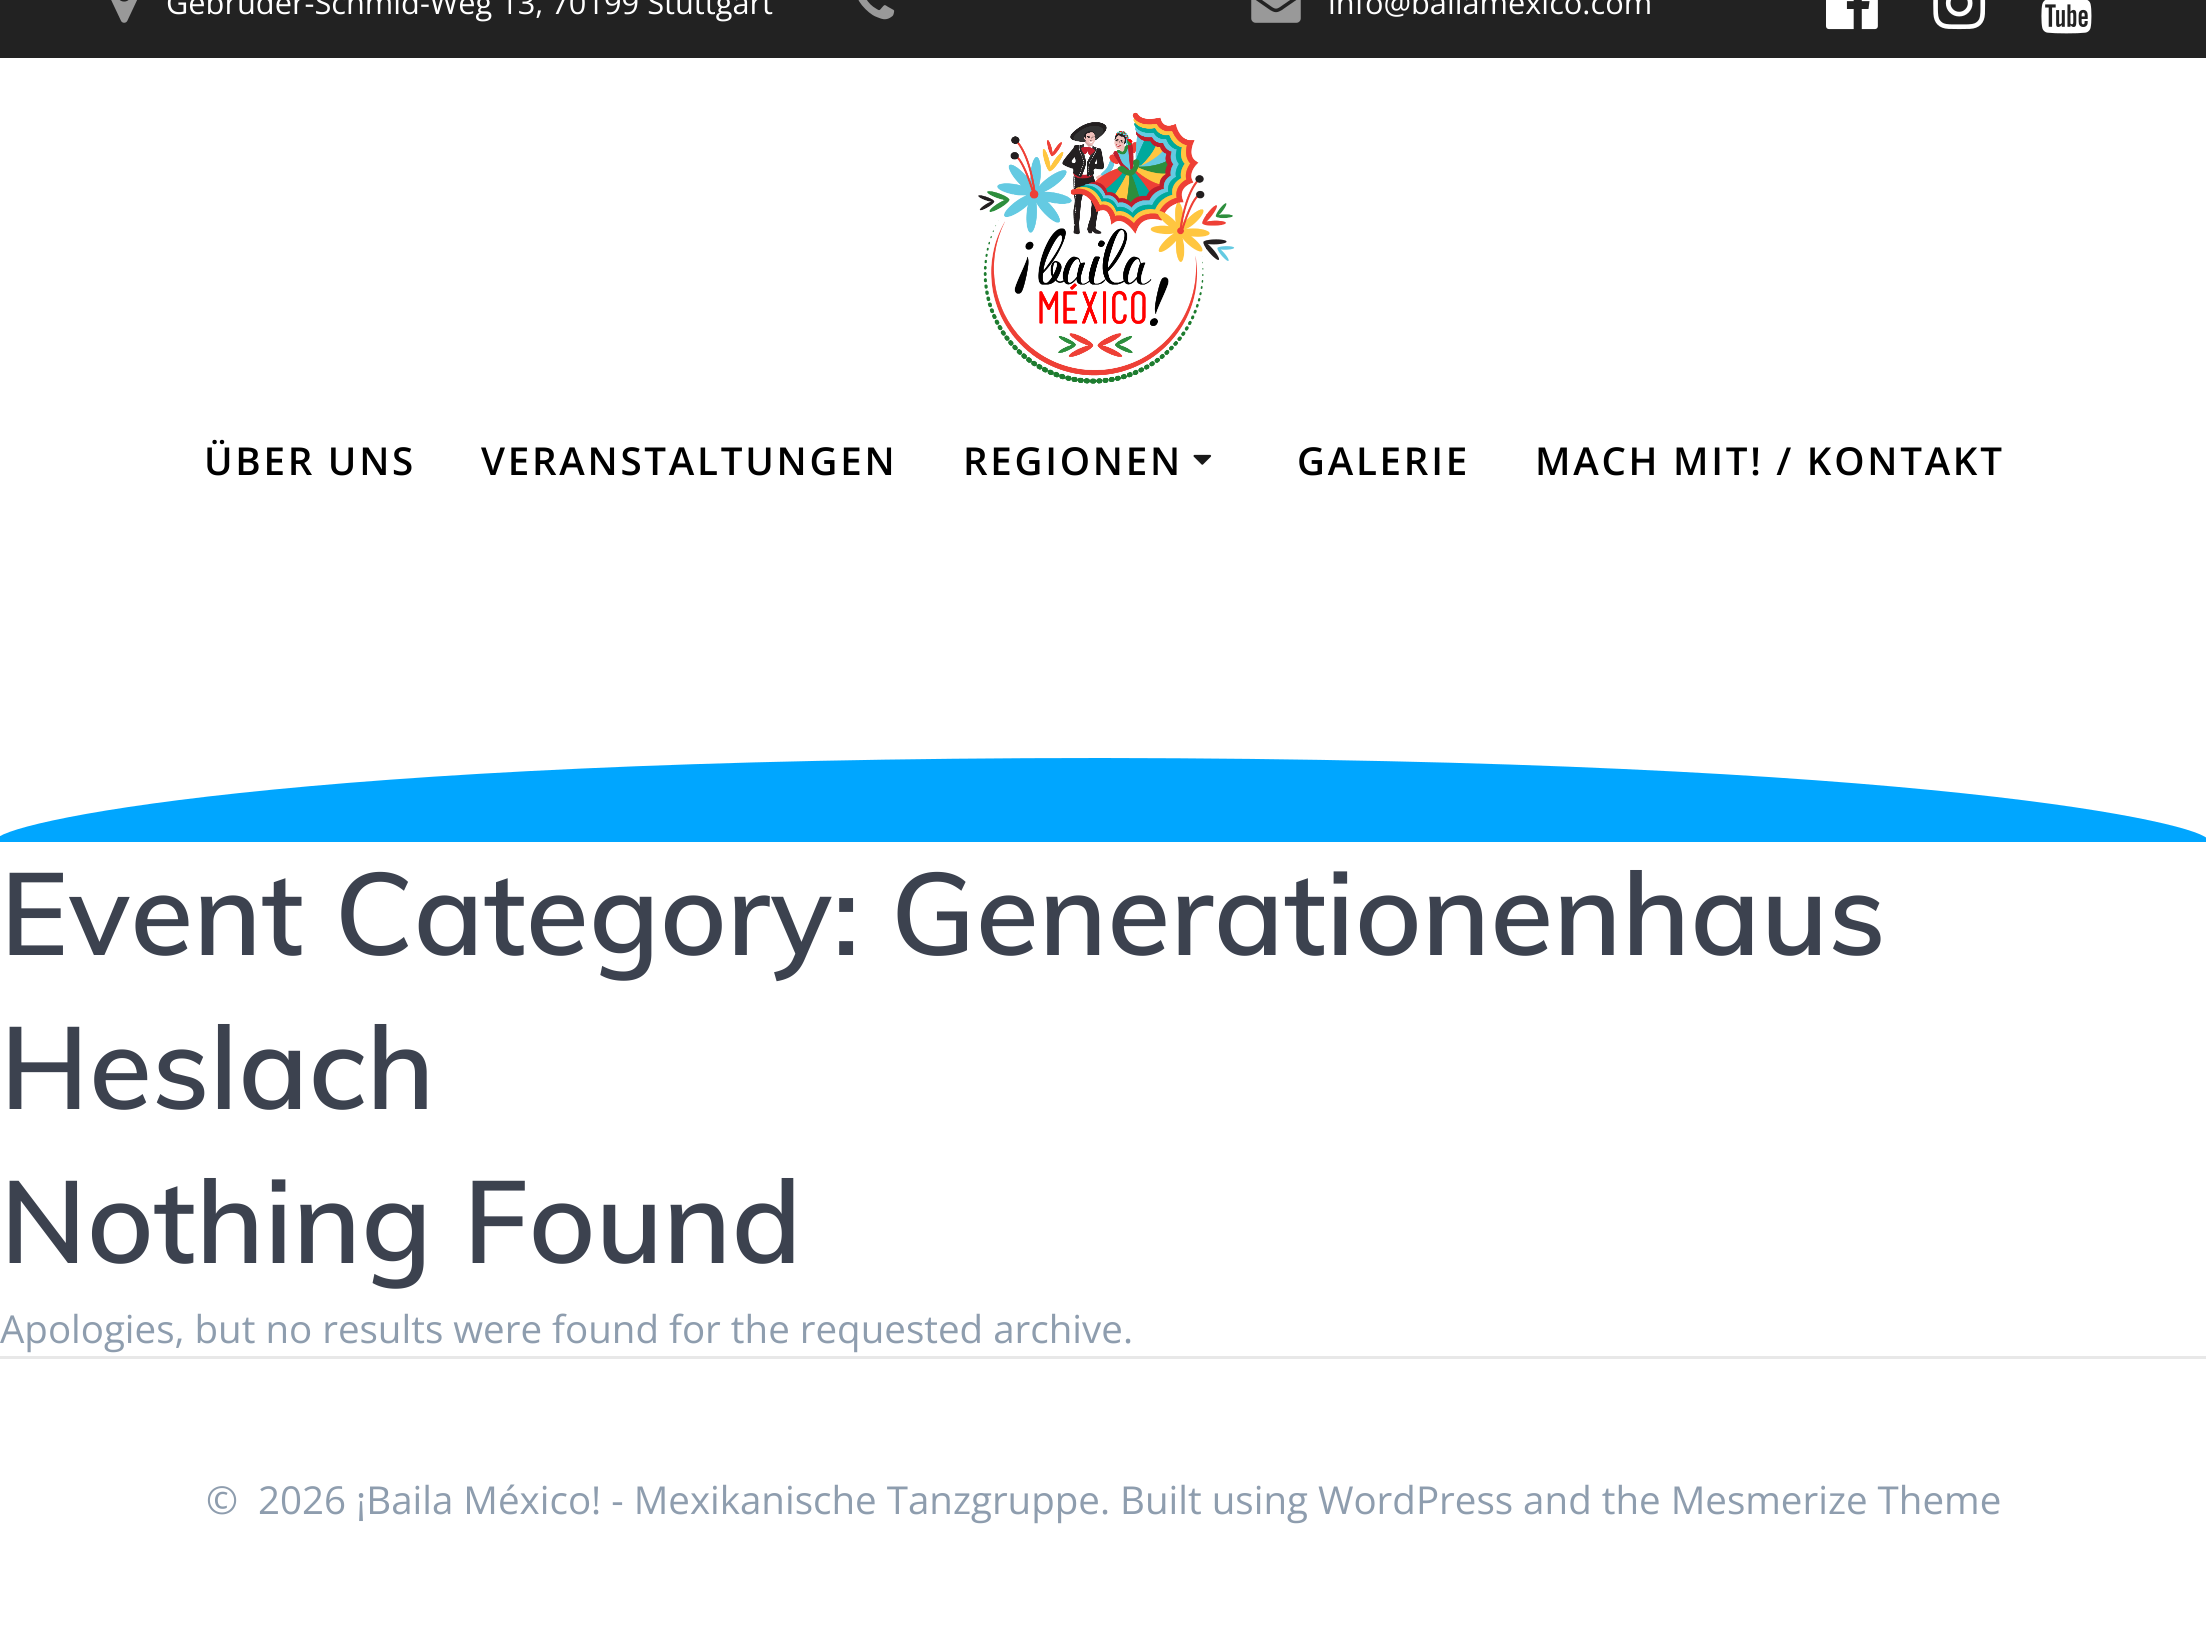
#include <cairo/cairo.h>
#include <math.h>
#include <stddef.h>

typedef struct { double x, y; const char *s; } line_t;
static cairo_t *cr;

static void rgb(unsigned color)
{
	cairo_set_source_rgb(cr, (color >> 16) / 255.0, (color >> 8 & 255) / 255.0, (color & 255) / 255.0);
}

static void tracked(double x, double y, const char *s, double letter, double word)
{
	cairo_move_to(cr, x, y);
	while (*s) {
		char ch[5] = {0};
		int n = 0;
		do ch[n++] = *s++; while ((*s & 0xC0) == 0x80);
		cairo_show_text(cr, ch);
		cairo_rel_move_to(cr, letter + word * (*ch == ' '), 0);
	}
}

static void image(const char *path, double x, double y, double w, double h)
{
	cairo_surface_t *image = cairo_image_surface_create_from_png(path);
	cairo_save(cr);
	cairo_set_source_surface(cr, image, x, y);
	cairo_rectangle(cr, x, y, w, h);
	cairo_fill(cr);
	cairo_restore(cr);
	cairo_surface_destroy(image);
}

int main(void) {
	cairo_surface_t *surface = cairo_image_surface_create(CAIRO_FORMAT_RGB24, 2206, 1634);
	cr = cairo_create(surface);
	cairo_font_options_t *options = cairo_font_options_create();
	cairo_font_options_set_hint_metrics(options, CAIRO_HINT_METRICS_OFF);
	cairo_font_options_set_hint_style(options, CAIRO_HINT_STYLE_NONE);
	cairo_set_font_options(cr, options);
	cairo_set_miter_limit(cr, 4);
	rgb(0xffffff);
	cairo_paint(cr);
	rgb(0x222222);
	cairo_rectangle(cr, 0, 0, 2206, 58);
	cairo_fill(cr);
	image("img/1.png", 111, 0, 26, 23);
	image("img/2.png", 858, 0, 37, 20);
	image("img/3.png", 1251, 0, 50, 23);
	image("img/4.png", 1826, 0, 52, 30);
	image("img/5.png", 1933, 0, 53, 30);
	image("img/6.png", 2041, 0, 51, 34);
	image("img/7.png", 978, 112, 257, 272);
	image("img/8.png", 1193, 454, 19, 11);
	cairo_save(cr);
	cairo_rectangle(cr, 0, 756, 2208, 86);
	cairo_clip(cr);
	rgb(0x00a6ff);
	cairo_new_path(cr);
	cairo_move_to(cr, -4, 840);
	cairo_line_to(cr, -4, 844);
	cairo_line_to(cr, 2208, 844);
	cairo_line_to(cr, 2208, 840);
	cairo_curve_to(cr, 2206, 824, 1928, 759, 1102, 758);
	cairo_curve_to(cr, 277, 758, -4, 824, -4, 840);
	cairo_close_path(cr);
	cairo_fill(cr);
	cairo_restore(cr);
	rgb(0xe8e8e8);
	cairo_rectangle(cr, 0, 1356, 2206, 3);
	cairo_fill(cr);
	cairo_select_font_face(cr, "Open Sans", CAIRO_FONT_SLANT_NORMAL, CAIRO_FONT_WEIGHT_NORMAL);
	cairo_set_font_size(cr, 30.75);
	rgb(0xffffff);
	cairo_move_to(cr, 166, 14);
	cairo_show_text(cr, "Gebrüder-Schmid-Weg 13, 70199 Stuttgart");
	cairo_move_to(cr, 1328, 14);
	cairo_show_text(cr, "info@bailamexico.com");
	cairo_select_font_face(cr, "Open Sans SemiBold", CAIRO_FONT_SLANT_NORMAL, CAIRO_FONT_WEIGHT_NORMAL);
	cairo_set_font_size(cr, 38.5);
	rgb(0x000000);
	{
		static const line_t items[] = {
			{204, 475, "ÜBER UNS"},
			{481, 475, "VERANSTALTUNGEN"},
			{963, 475, "REGIONEN"},
			{1297, 475, "GALERIE"},
			{1535, 475, "MACH MIT! / KONTAKT"},
		};
		for (size_t i = 0; i < sizeof items / sizeof *items; i++) {
			tracked(items[i].x, items[i].y, items[i].s, 2.75, 0);
		}
	}
	cairo_select_font_face(cr, "Muli SemiBold", CAIRO_FONT_SLANT_NORMAL, CAIRO_FONT_WEIGHT_NORMAL);
	cairo_set_font_size(cr, 115.5);
	rgb(0x3c424f);
	{
		static const line_t items[] = {
			{0, 955, "Event Category: Generationenhaus"},
			{0, 1109, "Heslach"},
			{0, 1263, "Nothing Found"},
		};
		for (size_t i = 0; i < sizeof items / sizeof *items; i++) {
			cairo_move_to(cr, items[i].x, items[i].y);
			cairo_show_text(cr, items[i].s);
		}
	}
	cairo_select_font_face(cr, "Open Sans", CAIRO_FONT_SLANT_NORMAL, CAIRO_FONT_WEIGHT_NORMAL);
	cairo_set_font_size(cr, 38.5);
	rgb(0x8e9dae);
	cairo_move_to(cr, 0, 1343);
	cairo_show_text(cr, "Apologies, but no results were found for the requested archive.");
	cairo_move_to(cr, 206, 1514);
	cairo_show_text(cr, "©  2026 ¡Baila México! - Mexikanische Tanzgruppe. Built using WordPress and the Mesmerize Theme");
	cairo_surface_write_to_png(surface, "page.png");
	cairo_font_options_destroy(options);
	cairo_destroy(cr);
	cairo_surface_destroy(surface);
	return 0;
}
